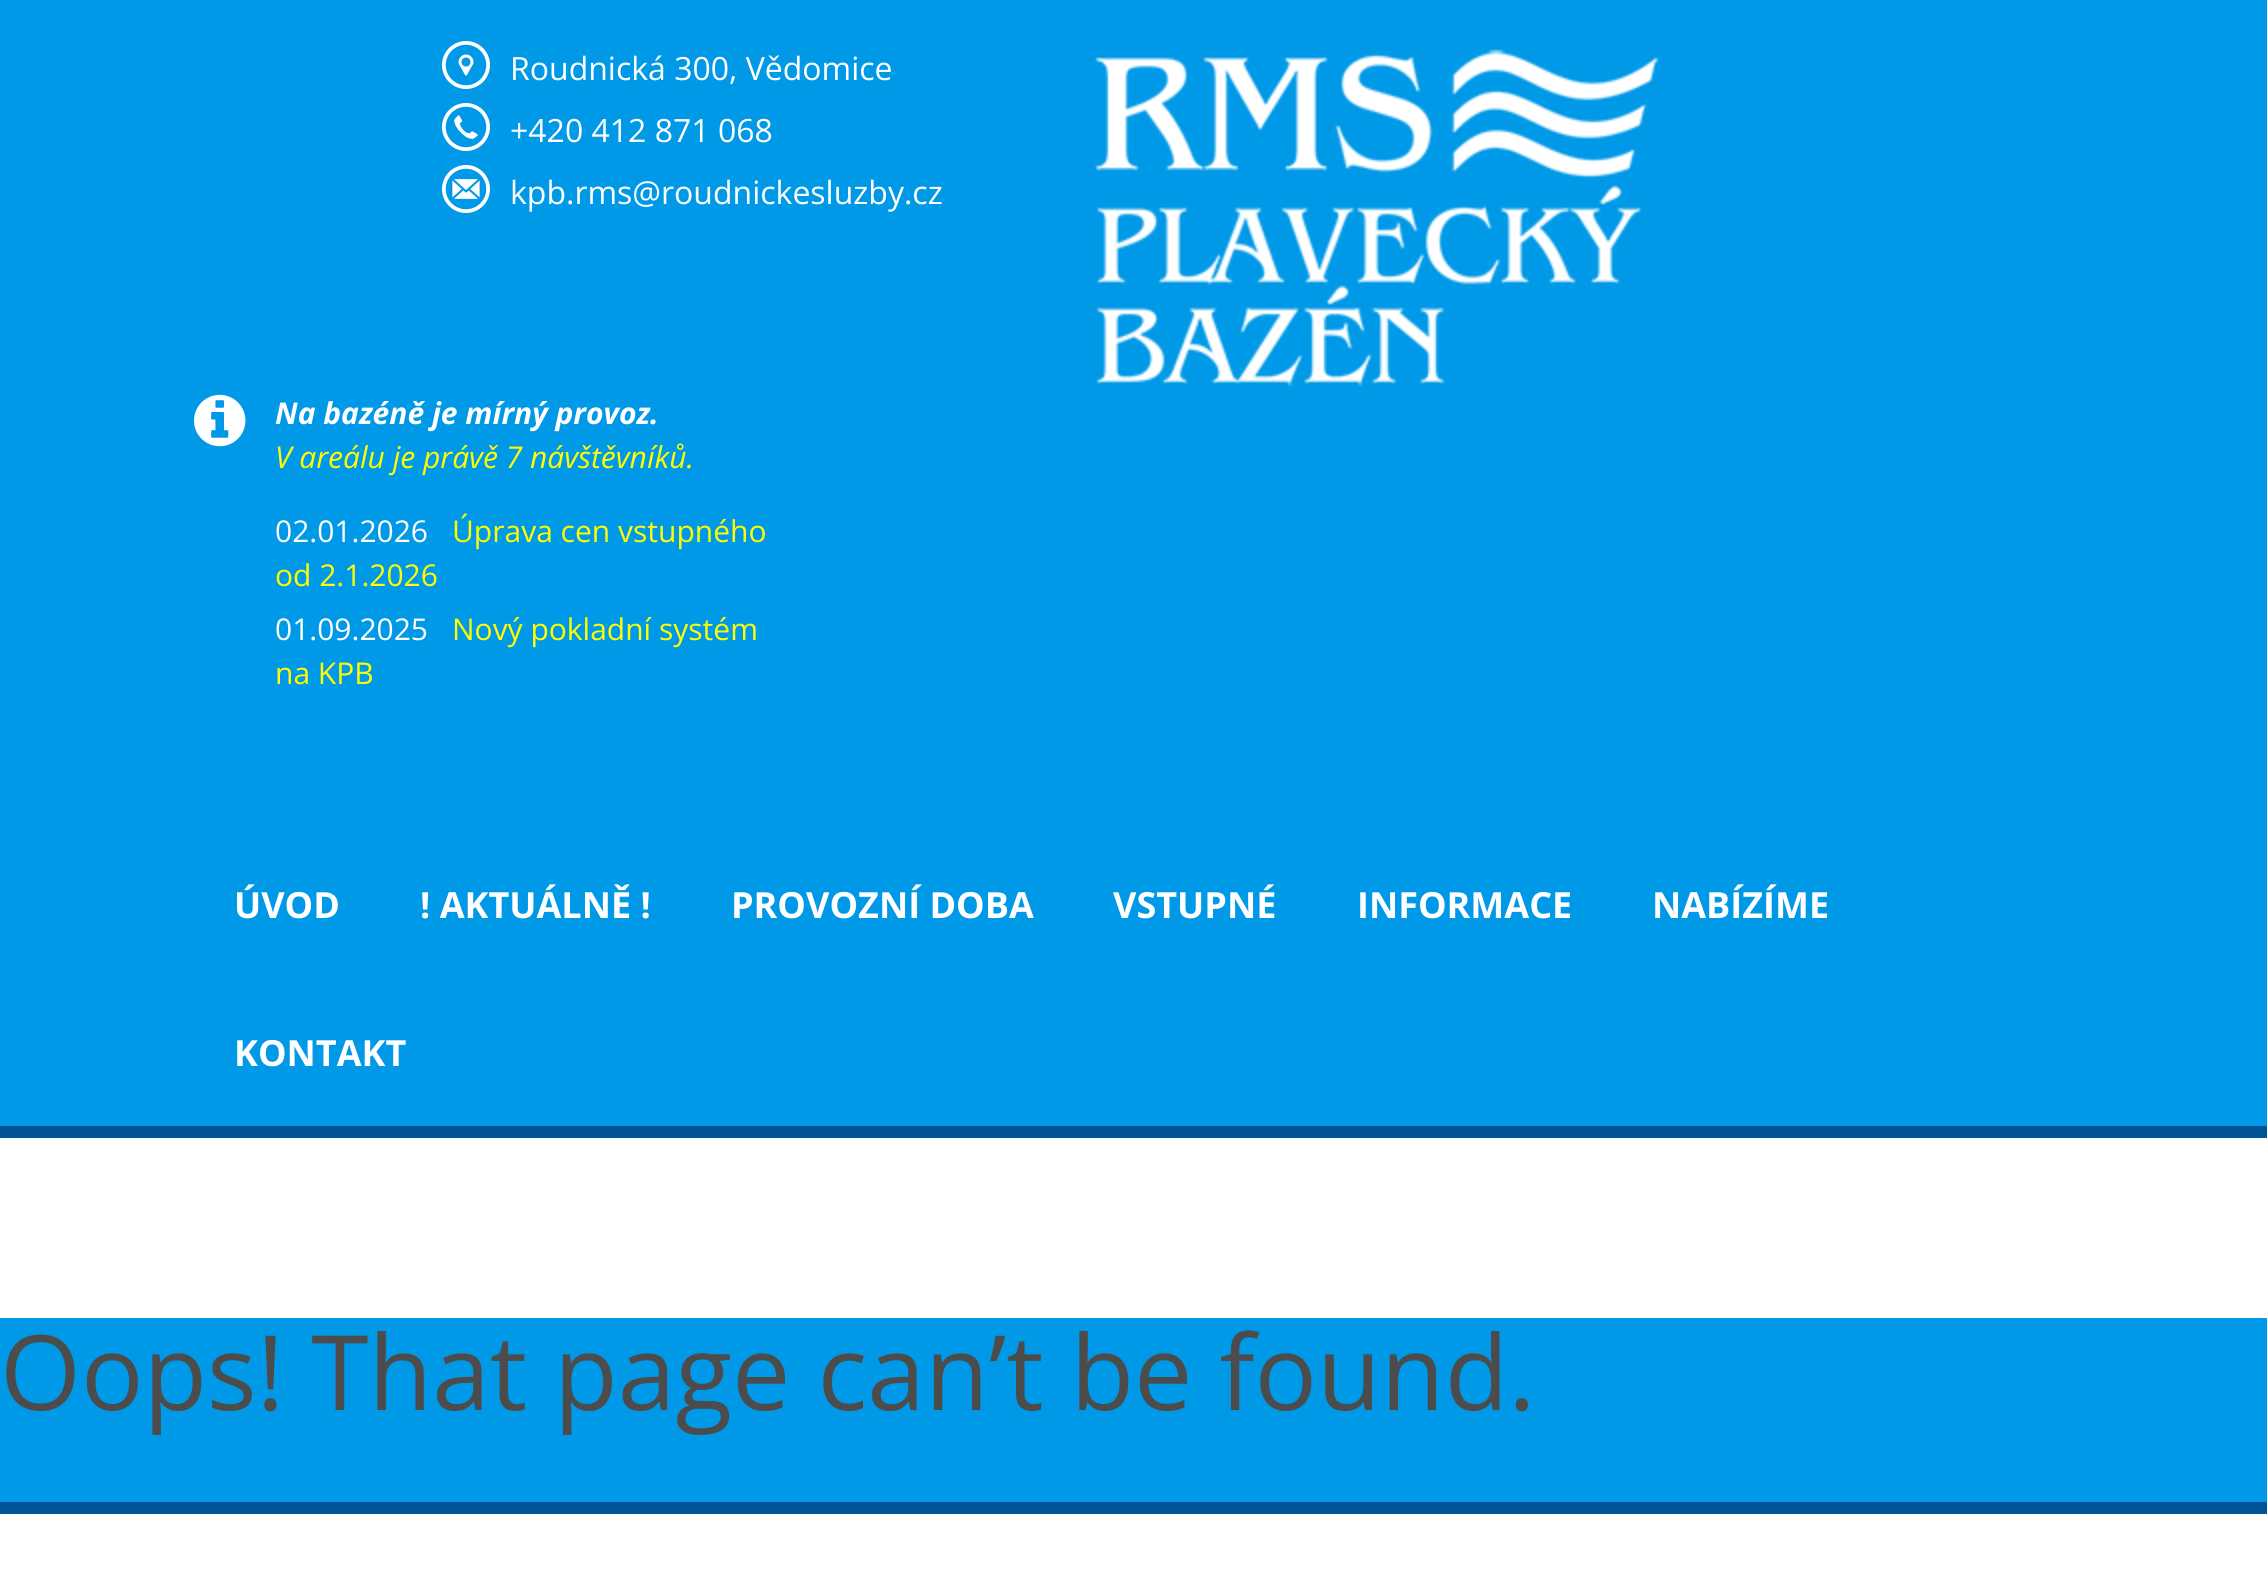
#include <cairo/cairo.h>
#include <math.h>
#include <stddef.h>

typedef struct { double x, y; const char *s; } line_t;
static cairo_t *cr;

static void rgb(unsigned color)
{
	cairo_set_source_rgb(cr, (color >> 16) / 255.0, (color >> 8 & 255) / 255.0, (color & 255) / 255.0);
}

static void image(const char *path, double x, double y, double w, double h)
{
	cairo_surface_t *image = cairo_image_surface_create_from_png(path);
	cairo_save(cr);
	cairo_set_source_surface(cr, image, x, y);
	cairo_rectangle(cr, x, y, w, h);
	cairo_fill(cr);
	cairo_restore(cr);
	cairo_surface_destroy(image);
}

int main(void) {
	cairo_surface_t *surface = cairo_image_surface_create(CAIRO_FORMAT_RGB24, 2267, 1573);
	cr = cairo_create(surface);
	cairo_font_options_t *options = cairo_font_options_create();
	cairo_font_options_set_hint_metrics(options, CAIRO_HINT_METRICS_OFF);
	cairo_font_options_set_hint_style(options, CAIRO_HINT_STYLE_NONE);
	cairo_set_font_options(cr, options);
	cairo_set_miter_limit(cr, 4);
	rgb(0xffffff);
	cairo_paint(cr);
	rgb(0x0099e7);
	cairo_rectangle(cr, 0, 0, 2267, 1126);
	cairo_fill(cr);
	rgb(0x005395);
	cairo_rectangle(cr, 0, 1126, 2267, 12);
	cairo_fill(cr);
	image("img/1.png", 442, 41, 48, 48);
	image("img/2.png", 442, 103, 48, 48);
	image("img/3.png", 442, 165, 48, 48);
	image("img/4.png", 1095, 49, 564, 338);
	image("img/5.png", 194, 394, 52, 53);
	rgb(0x0099e7);
	cairo_rectangle(cr, 0, 1318, 2267, 184);
	cairo_fill(cr);
	rgb(0x005395);
	cairo_rectangle(cr, 0, 1502, 2267, 12);
	cairo_fill(cr);
	cairo_select_font_face(cr, "Open Sans", CAIRO_FONT_SLANT_NORMAL, CAIRO_FONT_WEIGHT_NORMAL);
	cairo_set_font_size(cr, 32);
	rgb(0xffffff);
	{
		static const line_t items[] = {
			{510, 80, "Roudnická 300, Vědomice"},
			{510, 142, "+420 412 871 068"},
			{510, 204, "kpb.rms@roudnickesluzby.cz"},
		};
		for (size_t i = 0; i < sizeof items / sizeof *items; i++) {
			cairo_move_to(cr, items[i].x, items[i].y);
			cairo_show_text(cr, items[i].s);
		}
	}
	cairo_select_font_face(cr, "Open Sans", CAIRO_FONT_SLANT_ITALIC, CAIRO_FONT_WEIGHT_BOLD);
	cairo_set_font_size(cr, 30);
	cairo_move_to(cr, 275, 424);
	cairo_show_text(cr, "Na bazéně je mírný provoz.");
	cairo_select_font_face(cr, "Open Sans", CAIRO_FONT_SLANT_ITALIC, CAIRO_FONT_WEIGHT_NORMAL);
	rgb(0xffff00);
	cairo_move_to(cr, 275, 468);
	cairo_show_text(cr, "V areálu je právě 7 návštěvníků.");
	cairo_select_font_face(cr, "Open Sans", CAIRO_FONT_SLANT_NORMAL, CAIRO_FONT_WEIGHT_NORMAL);
	rgb(0xffffff);
	cairo_move_to(cr, 275, 542);
	cairo_show_text(cr, "02.01.2026");
	rgb(0xffff00);
	cairo_move_to(cr, 452, 542);
	cairo_show_text(cr, "Úprava cen vstupného");
	cairo_move_to(cr, 275, 586);
	cairo_show_text(cr, "od 2.1.2026");
	rgb(0xffffff);
	cairo_move_to(cr, 275, 640);
	cairo_show_text(cr, "01.09.2025");
	rgb(0xffff00);
	cairo_move_to(cr, 452, 640);
	cairo_show_text(cr, "Nový pokladní systém");
	cairo_move_to(cr, 275, 684);
	cairo_show_text(cr, "na KPB");
	cairo_select_font_face(cr, "Open Sans", CAIRO_FONT_SLANT_NORMAL, CAIRO_FONT_WEIGHT_BOLD);
	cairo_set_font_size(cr, 36);
	rgb(0xffffff);
	{
		static const line_t items[] = {
			{234, 918, "ÚVOD"},
			{420, 918, "! AKTUÁLNĚ !"},
			{731, 918, "PROVOZNÍ DOBA"},
			{1113, 918, "VSTUPNÉ"},
			{1357, 918, "INFORMACE"},
			{1652, 918, "NABÍZÍME"},
			{234, 1066, "KONTAKT"},
		};
		for (size_t i = 0; i < sizeof items / sizeof *items; i++) {
			cairo_move_to(cr, items[i].x, items[i].y);
			cairo_show_text(cr, items[i].s);
		}
	}
	cairo_select_font_face(cr, "Open Sans", CAIRO_FONT_SLANT_NORMAL, CAIRO_FONT_WEIGHT_NORMAL);
	cairo_set_font_size(cr, 104);
	rgb(0x4c4c4c);
	cairo_move_to(cr, 0, 1410);
	cairo_show_text(cr, "Oops! That page can’t be found.");
	cairo_surface_write_to_png(surface, "page.png");
	cairo_font_options_destroy(options);
	cairo_destroy(cr);
	cairo_surface_destroy(surface);
	return 0;
}
